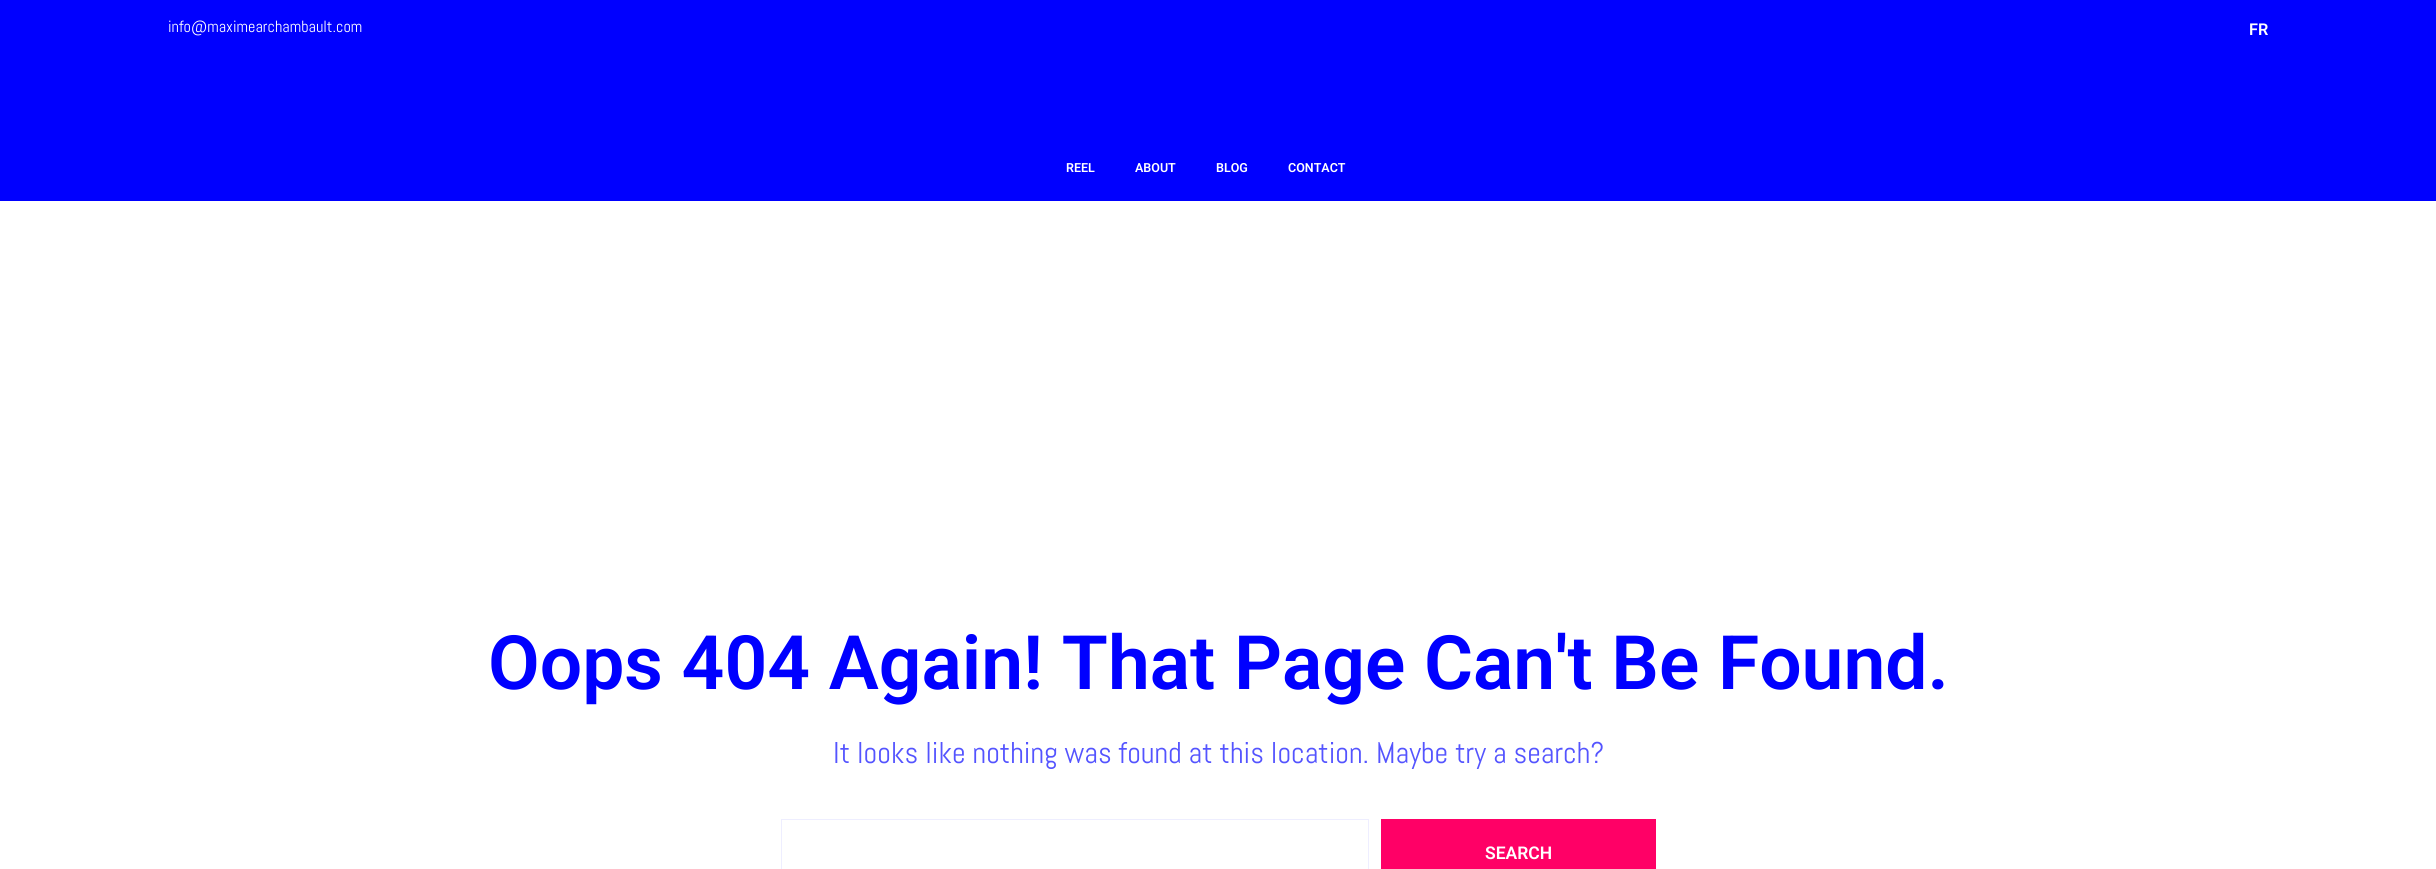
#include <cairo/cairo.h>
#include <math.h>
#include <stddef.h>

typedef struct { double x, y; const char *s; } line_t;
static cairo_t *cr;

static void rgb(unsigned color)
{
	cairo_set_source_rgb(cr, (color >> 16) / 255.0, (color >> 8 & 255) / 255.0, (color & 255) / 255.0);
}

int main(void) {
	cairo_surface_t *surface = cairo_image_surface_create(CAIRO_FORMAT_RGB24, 2436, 869);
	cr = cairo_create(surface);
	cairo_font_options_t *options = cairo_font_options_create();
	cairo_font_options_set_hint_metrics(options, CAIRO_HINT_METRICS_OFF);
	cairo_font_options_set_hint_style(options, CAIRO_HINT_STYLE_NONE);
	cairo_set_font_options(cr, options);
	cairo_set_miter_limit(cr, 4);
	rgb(0xffffff);
	cairo_paint(cr);
	rgb(0x0000ff);
	cairo_rectangle(cr, 0, 0, 2436, 201);
	cairo_fill(cr);
	cairo_rectangle(cr, 781.5, 819.5, 587, 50);
	rgb(0xeeeeff);
	cairo_set_line_width(cr, 1);
	cairo_stroke(cr);
	rgb(0xff0066);
	cairo_rectangle(cr, 1381, 819, 275, 50);
	cairo_fill(cr);
	cairo_select_font_face(cr, "Abel", CAIRO_FONT_SLANT_NORMAL, CAIRO_FONT_WEIGHT_NORMAL);
	cairo_set_font_size(cr, 16.25);
	rgb(0xffffff);
	cairo_move_to(cr, 168, 32);
	cairo_show_text(cr, "info@maximearchambault.com");
	cairo_select_font_face(cr, "Roboto SemiBold", CAIRO_FONT_SLANT_NORMAL, CAIRO_FONT_WEIGHT_NORMAL);
	cairo_move_to(cr, 2249, 35);
	cairo_show_text(cr, "FR");
	cairo_set_font_size(cr, 12.5);
	{
		static const line_t items[] = {
			{1066, 172, "REEL"},
			{1135, 172, "ABOUT"},
			{1216, 172, "BLOG"},
			{1288, 172, "CONTACT"},
		};
		for (size_t i = 0; i < sizeof items / sizeof *items; i++) {
			cairo_move_to(cr, items[i].x, items[i].y);
			cairo_show_text(cr, items[i].s);
		}
	}
	cairo_set_font_size(cr, 75);
	rgb(0x0000ff);
	cairo_move_to(cr, 488, 689);
	cairo_show_text(cr, "Oops 404 Again! That Page Can't Be Found.");
	cairo_select_font_face(cr, "Abel", CAIRO_FONT_SLANT_NORMAL, CAIRO_FONT_WEIGHT_NORMAL);
	cairo_set_font_size(cr, 30);
	rgb(0x5454ff);
	cairo_move_to(cr, 833, 763);
	cairo_show_text(cr, "It looks like nothing was found at this location. Maybe try a search?");
	cairo_select_font_face(cr, "Roboto SemiBold", CAIRO_FONT_SLANT_NORMAL, CAIRO_FONT_WEIGHT_NORMAL);
	cairo_set_font_size(cr, 17.5);
	rgb(0xffffff);
	cairo_move_to(cr, 1485, 859);
	cairo_show_text(cr, "SEARCH");
	cairo_surface_write_to_png(surface, "page.png");
	cairo_font_options_destroy(options);
	cairo_destroy(cr);
	cairo_surface_destroy(surface);
	return 0;
}
